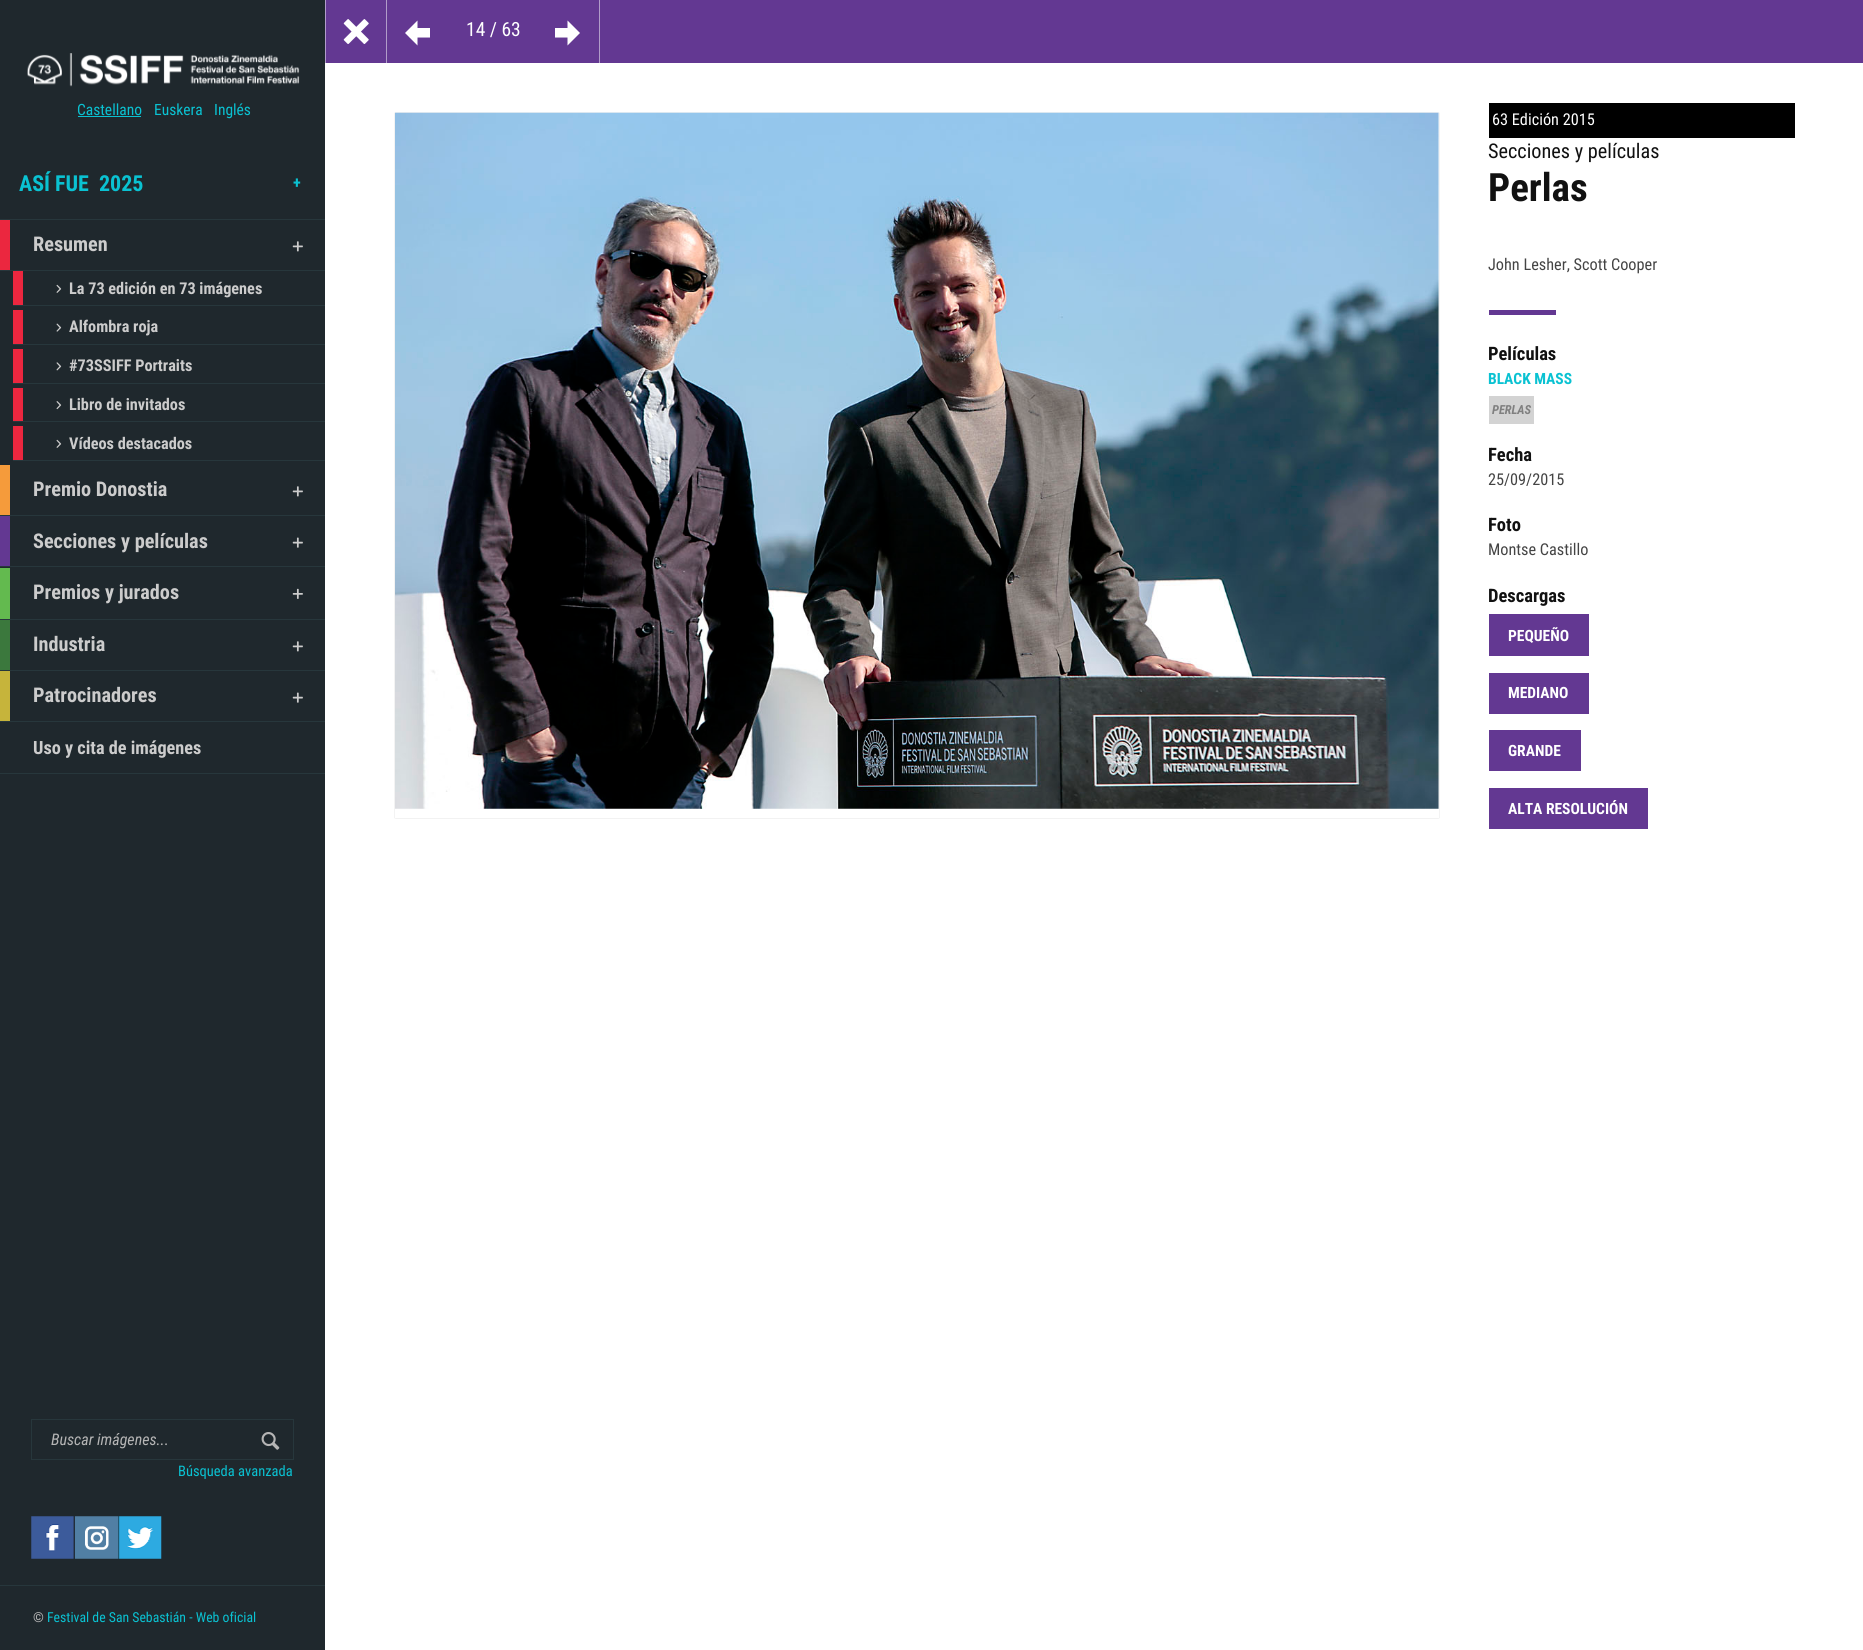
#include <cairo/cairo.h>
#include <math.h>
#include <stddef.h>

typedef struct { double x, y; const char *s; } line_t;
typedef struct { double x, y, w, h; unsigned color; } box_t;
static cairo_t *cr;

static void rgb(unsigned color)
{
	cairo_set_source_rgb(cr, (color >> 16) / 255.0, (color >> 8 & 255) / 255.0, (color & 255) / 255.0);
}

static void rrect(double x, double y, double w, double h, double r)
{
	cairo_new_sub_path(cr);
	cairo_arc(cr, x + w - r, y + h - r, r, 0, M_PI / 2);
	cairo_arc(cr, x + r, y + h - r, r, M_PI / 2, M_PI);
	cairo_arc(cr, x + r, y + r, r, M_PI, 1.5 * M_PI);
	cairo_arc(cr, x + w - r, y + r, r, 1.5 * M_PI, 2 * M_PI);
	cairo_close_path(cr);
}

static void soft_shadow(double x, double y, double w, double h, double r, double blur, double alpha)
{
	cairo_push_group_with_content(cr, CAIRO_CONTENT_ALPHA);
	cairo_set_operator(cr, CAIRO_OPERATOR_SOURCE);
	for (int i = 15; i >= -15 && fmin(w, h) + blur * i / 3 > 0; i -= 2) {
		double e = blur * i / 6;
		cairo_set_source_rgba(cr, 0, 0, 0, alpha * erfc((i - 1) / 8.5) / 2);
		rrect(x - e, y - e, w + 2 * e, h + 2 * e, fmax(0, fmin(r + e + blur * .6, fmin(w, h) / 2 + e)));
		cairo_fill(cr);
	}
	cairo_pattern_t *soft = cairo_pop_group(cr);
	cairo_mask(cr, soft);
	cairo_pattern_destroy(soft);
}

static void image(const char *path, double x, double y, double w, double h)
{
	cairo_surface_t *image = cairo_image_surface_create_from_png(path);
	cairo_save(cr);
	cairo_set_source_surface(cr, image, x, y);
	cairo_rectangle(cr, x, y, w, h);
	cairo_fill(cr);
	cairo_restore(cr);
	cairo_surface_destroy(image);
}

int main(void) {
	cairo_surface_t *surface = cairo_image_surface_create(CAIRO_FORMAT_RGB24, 1863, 1650);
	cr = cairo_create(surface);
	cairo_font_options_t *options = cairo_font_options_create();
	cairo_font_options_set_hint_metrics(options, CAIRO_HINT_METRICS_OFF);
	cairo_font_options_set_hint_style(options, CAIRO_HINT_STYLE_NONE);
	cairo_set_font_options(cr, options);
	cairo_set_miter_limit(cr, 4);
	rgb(0xffffff);
	cairo_paint(cr);
	{
		static const box_t items[] = {
			{326, 0, 1537, 63, 0x633892},
			{386, 0, 1, 63, 0xb19cc9},
			{325, 0, 1, 63, 0xb19cc9},
		};
		for (size_t i = 0; i < sizeof items / sizeof *items; i++) {
			rgb(items[i].color);
			cairo_rectangle(cr, items[i].x, items[i].y, items[i].w, items[i].h);
			cairo_fill(cr);
		}
	}
	image("img/1.png", 343, 19, 26, 25);
	rgb(0xffffff);
	cairo_new_path(cr);
	cairo_move_to(cr, 405, 33);
	cairo_line_to(cr, 417.5, 20.5);
	cairo_line_to(cr, 417.5, 28);
	cairo_line_to(cr, 430, 28);
	cairo_line_to(cr, 430, 37.5);
	cairo_line_to(cr, 417.5, 37.5);
	cairo_line_to(cr, 417.5, 45.5);
	cairo_close_path(cr);
	cairo_fill(cr);
	rgb(0xb19cc9);
	cairo_rectangle(cr, 599, 0, 1, 63);
	cairo_fill(cr);
	rgb(0xffffff);
	cairo_new_path(cr);
	cairo_move_to(cr, 580, 33);
	cairo_line_to(cr, 567.5, 45.5);
	cairo_line_to(cr, 567.5, 37.5);
	cairo_line_to(cr, 555, 37.5);
	cairo_line_to(cr, 555, 28);
	cairo_line_to(cr, 567.5, 28);
	cairo_line_to(cr, 567.5, 20.5);
	cairo_close_path(cr);
	cairo_fill(cr);
	rgb(0x1f282d);
	cairo_rectangle(cr, 0, 0, 325, 1650);
	cairo_fill(cr);
	image("img/2.png", 27, 53, 273, 34);
	{
		static const box_t items[] = {
			{78, 116, 63, 1, 0x0ac2d2},
			{0, 219, 325, 1, 0x27373c},
			{0, 270, 325, 1, 0x27373c},
			{0, 220, 10, 50, 0xeb273f},
		};
		for (size_t i = 0; i < sizeof items / sizeof *items; i++) {
			rgb(items[i].color);
			cairo_rectangle(cr, items[i].x, items[i].y, items[i].w, items[i].h);
			cairo_fill(cr);
		}
	}
	image("img/3.png", 292, 241, 11, 11);
	rgb(0x27373c);
	cairo_rectangle(cr, 13, 305, 312, 1);
	cairo_fill(cr);
	rgb(0xeb273f);
	cairo_rectangle(cr, 13, 271, 10, 34);
	cairo_fill(cr);
	image("img/4.png", 56, 284, 6, 9);
	rgb(0x27373c);
	cairo_rectangle(cr, 13, 344, 312, 1);
	cairo_fill(cr);
	rgb(0xeb273f);
	cairo_rectangle(cr, 13, 310, 10, 34);
	cairo_fill(cr);
	image("img/5.png", 56, 323, 6, 9);
	rgb(0x27373c);
	cairo_rectangle(cr, 13, 383, 312, 1);
	cairo_fill(cr);
	rgb(0xeb273f);
	cairo_rectangle(cr, 13, 349, 10, 34);
	cairo_fill(cr);
	image("img/6.png", 56, 362, 6, 9);
	rgb(0x27373c);
	cairo_rectangle(cr, 13, 421, 312, 1);
	cairo_fill(cr);
	rgb(0xeb273f);
	cairo_rectangle(cr, 13, 388, 10, 33);
	cairo_fill(cr);
	image("img/7.png", 56, 401, 6, 9);
	rgb(0x27373c);
	cairo_rectangle(cr, 13, 460, 312, 1);
	cairo_fill(cr);
	rgb(0xeb273f);
	cairo_rectangle(cr, 13, 426, 10, 34);
	cairo_fill(cr);
	image("img/4.png", 56, 439, 6, 9);
	rgb(0x27373c);
	cairo_rectangle(cr, 0, 515, 325, 1);
	cairo_fill(cr);
	rgb(0xf59b3b);
	cairo_rectangle(cr, 0, 465, 10, 50);
	cairo_fill(cr);
	image("img/3.png", 292, 486, 11, 11);
	rgb(0x27373c);
	cairo_rectangle(cr, 0, 566, 325, 1);
	cairo_fill(cr);
	rgb(0x633892);
	cairo_rectangle(cr, 0, 516, 10, 50);
	cairo_fill(cr);
	image("img/8.png", 292, 537, 11, 11);
	rgb(0x27373c);
	cairo_rectangle(cr, 0, 619, 325, 1);
	cairo_fill(cr);
	rgb(0x63ba4f);
	cairo_rectangle(cr, 0, 568, 10, 51);
	cairo_fill(cr);
	image("img/9.png", 292, 588, 11, 11);
	rgb(0x27373c);
	cairo_rectangle(cr, 0, 670, 325, 1);
	cairo_fill(cr);
	rgb(0x3b783d);
	cairo_rectangle(cr, 0, 620, 10, 50);
	cairo_fill(cr);
	image("img/3.png", 292, 641, 11, 11);
	rgb(0x27373c);
	cairo_rectangle(cr, 0, 721, 325, 1);
	cairo_fill(cr);
	rgb(0xc6b43b);
	cairo_rectangle(cr, 0, 671, 10, 50);
	cairo_fill(cr);
	image("img/8.png", 292, 692, 11, 11);
	rgb(0x27373c);
	cairo_rectangle(cr, 0, 773, 325, 1);
	cairo_fill(cr);
	cairo_rectangle(cr, 31.5, 1419.5, 262, 40);
	cairo_set_line_width(cr, 1);
	cairo_stroke(cr);
	image("img/10.png", 261, 1432, 19, 18);
	image("img/11.png", 31, 1516, 44, 43);
	image("img/12.png", 75, 1516, 43, 43);
	image("img/13.png", 118, 1516, 44, 43);
	cairo_rectangle(cr, 0, 1585, 325, 1);
	cairo_fill(cr);
	cairo_save(cr);
	cairo_set_fill_rule(cr, CAIRO_FILL_RULE_EVEN_ODD);
	cairo_new_path(cr);
	cairo_move_to(cr, 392, 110);
	cairo_line_to(cr, 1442, 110);
	cairo_line_to(cr, 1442, 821);
	cairo_line_to(cr, 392, 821);
	cairo_close_path(cr);
	cairo_move_to(cr, 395, 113);
	cairo_line_to(cr, 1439, 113);
	cairo_line_to(cr, 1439, 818);
	cairo_line_to(cr, 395, 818);
	cairo_close_path(cr);
	cairo_clip(cr);
	rgb(0x000000);
	soft_shadow(395, 113, 1044, 705, 0, 0.5, 0.2);
	cairo_restore(cr);
	image("img/14.png", 395, 112, 1044, 697);
	{
		static const box_t items[] = {
			{1489, 103, 306, 35, 0x000000},
			{1489, 310, 67, 5, 0x633892},
			{1489, 396, 45, 28, 0xd3d3d3},
			{1489, 614, 100, 42, 0x633892},
			{1489, 673, 100, 41, 0x633892},
			{1489, 730, 92, 41, 0x633892},
			{1489, 788, 159, 41, 0x633892},
		};
		for (size_t i = 0; i < sizeof items / sizeof *items; i++) {
			rgb(items[i].color);
			cairo_rectangle(cr, items[i].x, items[i].y, items[i].w, items[i].h);
			cairo_fill(cr);
		}
	}
	cairo_select_font_face(cr, "Roboto Condensed", CAIRO_FONT_SLANT_NORMAL, CAIRO_FONT_WEIGHT_NORMAL);
	cairo_set_font_size(cr, 19.5);
	rgb(0xffffff);
	cairo_move_to(cr, 466, 36);
	cairo_show_text(cr, "14 / 63");
	cairo_set_font_size(cr, 15.5);
	rgb(0x0ac2d2);
	{
		static const line_t items[] = {
			{77, 115, "Castellano"},
			{154, 115, "Euskera"},
			{214, 115, "Inglés"},
		};
		for (size_t i = 0; i < sizeof items / sizeof *items; i++) {
			cairo_move_to(cr, items[i].x, items[i].y);
			cairo_show_text(cr, items[i].s);
		}
	}
	cairo_select_font_face(cr, "Roboto Condensed", CAIRO_FONT_SLANT_NORMAL, CAIRO_FONT_WEIGHT_BOLD);
	cairo_set_font_size(cr, 22);
	cairo_move_to(cr, 19, 191);
	cairo_show_text(cr, "ASÍ FUE  2025");
	cairo_set_font_size(cr, 16.25);
	cairo_move_to(cr, 293, 188);
	cairo_show_text(cr, "+");
	cairo_set_font_size(cr, 20.25);
	rgb(0xcccccc);
	cairo_move_to(cr, 33, 251);
	cairo_show_text(cr, "Resumen");
	cairo_set_font_size(cr, 16.25);
	{
		static const line_t items[] = {
			{69, 294, "La 73 edición en 73 imágenes"},
			{69, 332, "Alfombra roja"},
			{69, 371, "#73SSIFF Portraits"},
			{69, 410, "Libro de invitados"},
			{69, 449, "Vídeos destacados"},
		};
		for (size_t i = 0; i < sizeof items / sizeof *items; i++) {
			cairo_move_to(cr, items[i].x, items[i].y);
			cairo_show_text(cr, items[i].s);
		}
	}
	cairo_set_font_size(cr, 20.25);
	{
		static const line_t items[] = {
			{33, 496, "Premio Donostia"},
			{33, 548, "Secciones y películas"},
			{33, 599, "Premios y jurados"},
			{33, 651, "Industria"},
			{33, 702, "Patrocinadores"},
		};
		for (size_t i = 0; i < sizeof items / sizeof *items; i++) {
			cairo_move_to(cr, items[i].x, items[i].y);
			cairo_show_text(cr, items[i].s);
		}
	}
	cairo_set_font_size(cr, 18.25);
	cairo_move_to(cr, 33, 754);
	cairo_show_text(cr, "Uso y cita de imágenes");
	cairo_select_font_face(cr, "Roboto Condensed", CAIRO_FONT_SLANT_ITALIC, CAIRO_FONT_WEIGHT_NORMAL);
	cairo_set_font_size(cr, 16);
	rgb(0xb5b5b5);
	cairo_move_to(cr, 51, 1445);
	cairo_show_text(cr, "Buscar imágenes...");
	cairo_select_font_face(cr, "Roboto Condensed", CAIRO_FONT_SLANT_NORMAL, CAIRO_FONT_WEIGHT_NORMAL);
	cairo_set_font_size(cr, 14.5);
	rgb(0x0ac2d2);
	cairo_move_to(cr, 178, 1476);
	cairo_show_text(cr, "Búsqueda avanzada");
	cairo_set_font_size(cr, 13.75);
	rgb(0xb5b5b5);
	cairo_move_to(cr, 33, 1622);
	cairo_show_text(cr, "©");
	rgb(0x0ac2d2);
	cairo_move_to(cr, 47, 1622);
	cairo_show_text(cr, "Festival de San Sebastián - Web oficial");
	cairo_set_font_size(cr, 16.25);
	rgb(0xffffff);
	cairo_move_to(cr, 1492, 125);
	cairo_show_text(cr, "63 Edición 2015");
	cairo_set_font_size(cr, 20.25);
	rgb(0x111111);
	cairo_move_to(cr, 1488, 158);
	cairo_show_text(cr, "Secciones y películas");
	cairo_select_font_face(cr, "Roboto Condensed", CAIRO_FONT_SLANT_NORMAL, CAIRO_FONT_WEIGHT_BOLD);
	cairo_set_font_size(cr, 39);
	cairo_move_to(cr, 1488, 201);
	cairo_show_text(cr, "Perlas");
	cairo_select_font_face(cr, "Roboto Condensed", CAIRO_FONT_SLANT_NORMAL, CAIRO_FONT_WEIGHT_NORMAL);
	cairo_set_font_size(cr, 16.25);
	rgb(0x444444);
	cairo_move_to(cr, 1488, 270);
	cairo_show_text(cr, "John Lesher, Scott Cooper");
	cairo_select_font_face(cr, "Roboto Condensed", CAIRO_FONT_SLANT_NORMAL, CAIRO_FONT_WEIGHT_BOLD);
	cairo_set_font_size(cr, 18.5);
	rgb(0x111111);
	cairo_move_to(cr, 1488, 360);
	cairo_show_text(cr, "Películas");
	cairo_set_font_size(cr, 15.5);
	rgb(0x0ac2d2);
	cairo_move_to(cr, 1488, 384);
	cairo_show_text(cr, "BLACK MASS");
	cairo_select_font_face(cr, "Roboto Condensed", CAIRO_FONT_SLANT_ITALIC, CAIRO_FONT_WEIGHT_BOLD);
	cairo_set_font_size(cr, 12.5);
	rgb(0x808080);
	cairo_move_to(cr, 1492, 414);
	cairo_show_text(cr, "PERLAS");
	cairo_select_font_face(cr, "Roboto Condensed", CAIRO_FONT_SLANT_NORMAL, CAIRO_FONT_WEIGHT_BOLD);
	cairo_set_font_size(cr, 18.5);
	rgb(0x111111);
	cairo_move_to(cr, 1488, 461);
	cairo_show_text(cr, "Fecha");
	cairo_select_font_face(cr, "Roboto Condensed", CAIRO_FONT_SLANT_NORMAL, CAIRO_FONT_WEIGHT_NORMAL);
	cairo_set_font_size(cr, 16.25);
	rgb(0x444444);
	cairo_move_to(cr, 1488, 485);
	cairo_show_text(cr, "25/09/2015");
	cairo_select_font_face(cr, "Roboto Condensed", CAIRO_FONT_SLANT_NORMAL, CAIRO_FONT_WEIGHT_BOLD);
	cairo_set_font_size(cr, 18.5);
	rgb(0x111111);
	cairo_move_to(cr, 1488, 531);
	cairo_show_text(cr, "Foto");
	cairo_select_font_face(cr, "Roboto Condensed", CAIRO_FONT_SLANT_NORMAL, CAIRO_FONT_WEIGHT_NORMAL);
	cairo_set_font_size(cr, 16.25);
	rgb(0x444444);
	cairo_move_to(cr, 1488, 555);
	cairo_show_text(cr, "Montse Castillo");
	cairo_select_font_face(cr, "Roboto Condensed", CAIRO_FONT_SLANT_NORMAL, CAIRO_FONT_WEIGHT_BOLD);
	cairo_set_font_size(cr, 18.5);
	rgb(0x111111);
	cairo_move_to(cr, 1488, 602);
	cairo_show_text(cr, "Descargas");
	cairo_set_font_size(cr, 15.5);
	rgb(0xffffff);
	{
		static const line_t items[] = {
			{1508, 641, "PEQUEÑO"},
			{1508, 698, "MEDIANO"},
			{1508, 756, "GRANDE"},
			{1508, 814, "ALTA RESOLUCIÓN"},
		};
		for (size_t i = 0; i < sizeof items / sizeof *items; i++) {
			cairo_move_to(cr, items[i].x, items[i].y);
			cairo_show_text(cr, items[i].s);
		}
	}
	cairo_surface_write_to_png(surface, "page.png");
	cairo_font_options_destroy(options);
	cairo_destroy(cr);
	cairo_surface_destroy(surface);
	return 0;
}
